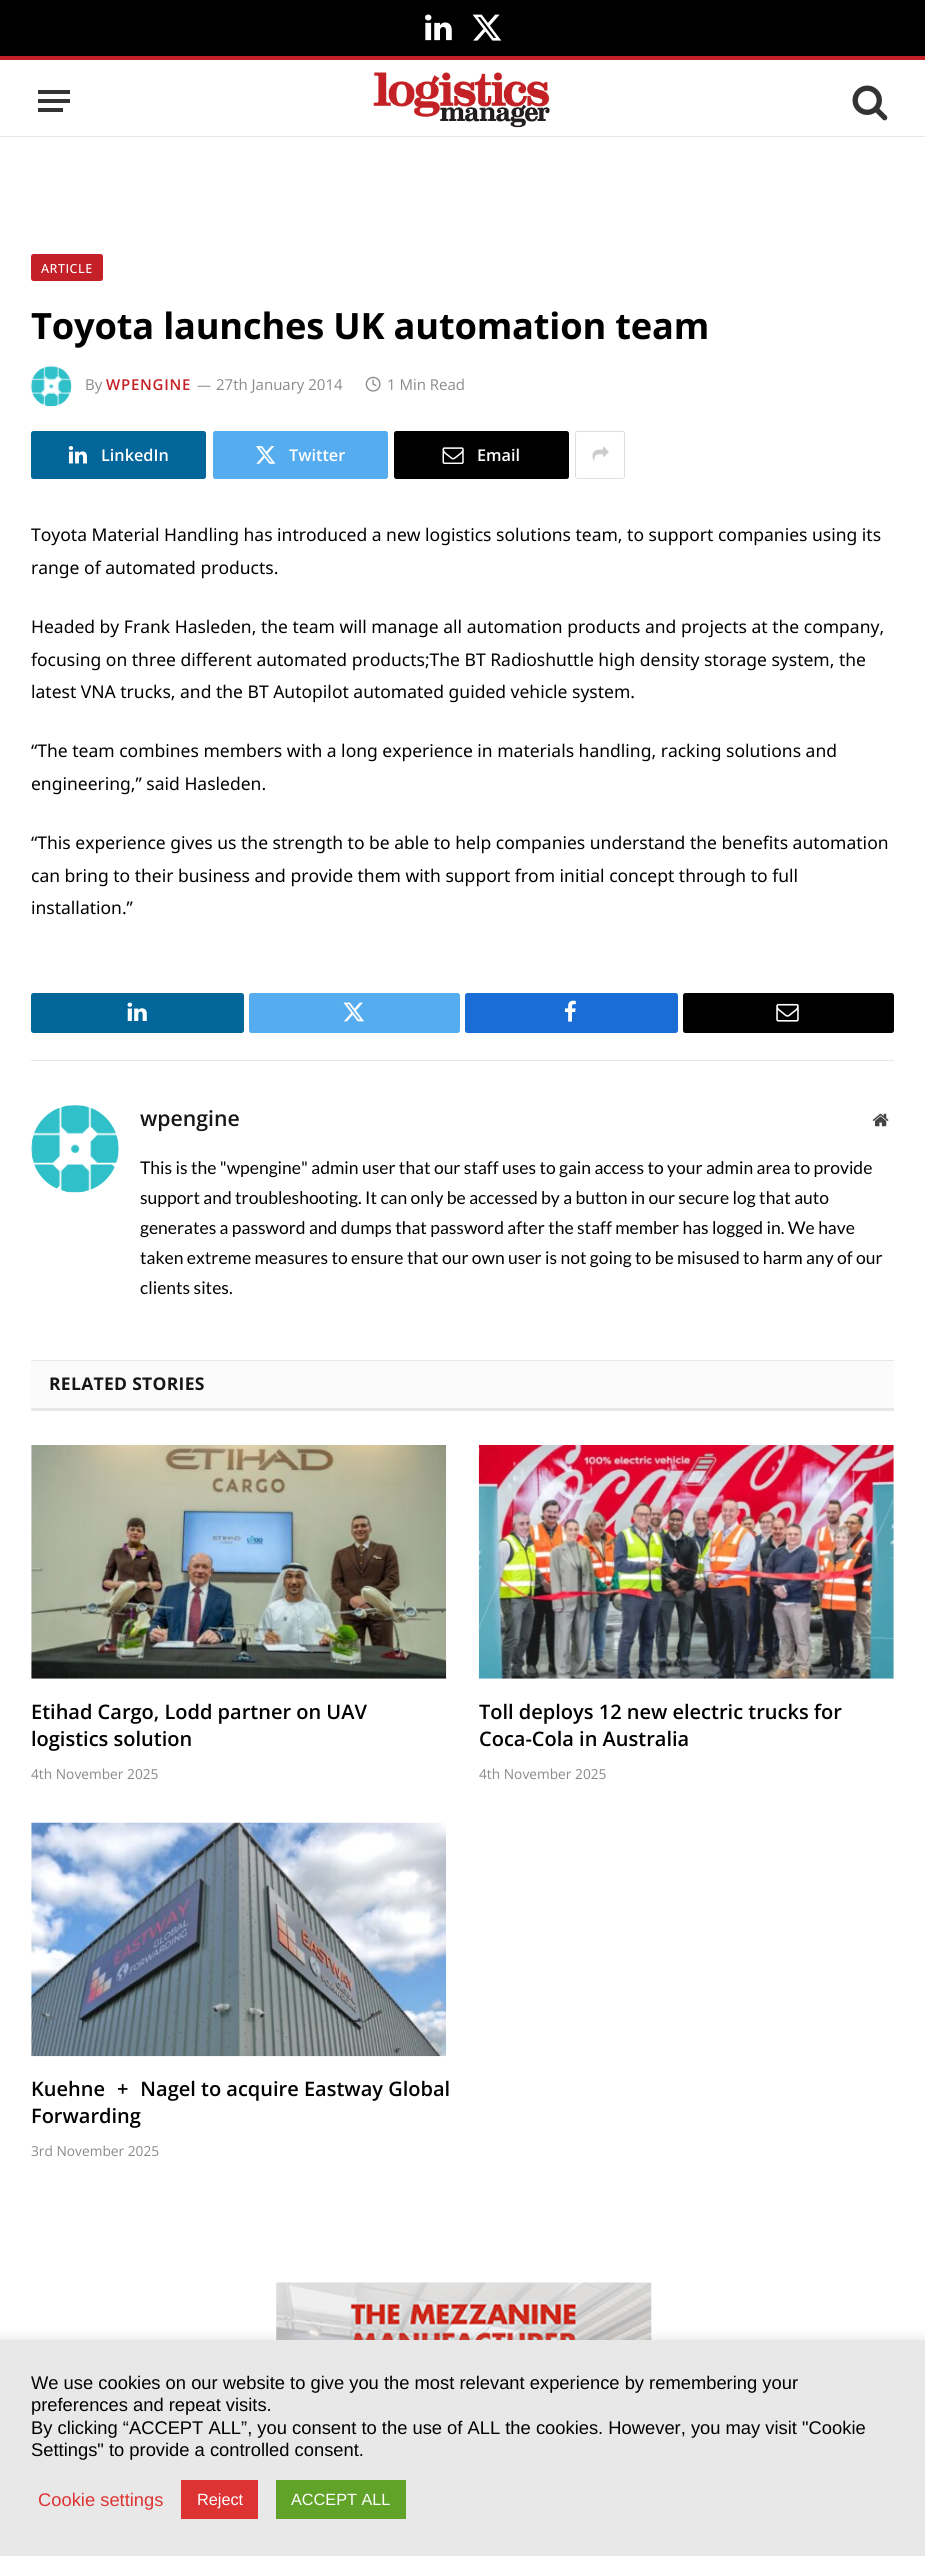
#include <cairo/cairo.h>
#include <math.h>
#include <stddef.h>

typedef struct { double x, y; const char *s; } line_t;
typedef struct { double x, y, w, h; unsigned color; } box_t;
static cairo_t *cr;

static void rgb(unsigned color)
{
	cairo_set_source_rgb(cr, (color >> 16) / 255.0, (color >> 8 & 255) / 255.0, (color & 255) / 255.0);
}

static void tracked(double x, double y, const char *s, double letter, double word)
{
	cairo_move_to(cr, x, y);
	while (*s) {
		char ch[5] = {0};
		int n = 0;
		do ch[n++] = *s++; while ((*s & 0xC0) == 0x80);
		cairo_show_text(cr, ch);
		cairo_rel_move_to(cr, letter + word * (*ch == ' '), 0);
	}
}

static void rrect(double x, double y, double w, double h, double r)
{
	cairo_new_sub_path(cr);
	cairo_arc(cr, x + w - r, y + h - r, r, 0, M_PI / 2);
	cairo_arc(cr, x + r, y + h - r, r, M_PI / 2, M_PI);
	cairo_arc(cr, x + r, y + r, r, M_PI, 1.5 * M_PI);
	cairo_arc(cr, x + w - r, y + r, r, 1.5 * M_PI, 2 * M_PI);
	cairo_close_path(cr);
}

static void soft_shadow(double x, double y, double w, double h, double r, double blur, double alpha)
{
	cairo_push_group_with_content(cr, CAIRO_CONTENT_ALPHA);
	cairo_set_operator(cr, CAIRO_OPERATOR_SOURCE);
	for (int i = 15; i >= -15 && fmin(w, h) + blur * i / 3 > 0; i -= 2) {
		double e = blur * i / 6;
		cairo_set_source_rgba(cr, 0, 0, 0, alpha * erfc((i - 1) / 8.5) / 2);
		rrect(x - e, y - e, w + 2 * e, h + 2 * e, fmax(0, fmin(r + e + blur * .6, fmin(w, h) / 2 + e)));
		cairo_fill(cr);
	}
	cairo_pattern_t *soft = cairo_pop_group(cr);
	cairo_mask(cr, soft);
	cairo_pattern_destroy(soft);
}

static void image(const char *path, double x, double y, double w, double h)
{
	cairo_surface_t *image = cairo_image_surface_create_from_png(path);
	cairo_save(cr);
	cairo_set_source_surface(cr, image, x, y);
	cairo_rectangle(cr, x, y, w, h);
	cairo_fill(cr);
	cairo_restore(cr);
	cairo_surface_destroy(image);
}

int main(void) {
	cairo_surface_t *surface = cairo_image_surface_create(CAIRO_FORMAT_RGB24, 925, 2556);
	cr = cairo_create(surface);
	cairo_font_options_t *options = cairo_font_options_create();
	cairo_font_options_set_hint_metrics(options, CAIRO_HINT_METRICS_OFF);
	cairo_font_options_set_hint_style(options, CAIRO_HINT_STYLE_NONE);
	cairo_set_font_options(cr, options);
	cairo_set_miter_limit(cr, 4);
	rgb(0xffffff);
	cairo_paint(cr);
	rgb(0x000000);
	cairo_rectangle(cr, 0, 0, 925, 56);
	cairo_fill(cr);
	image("img/1.png", 425, 14, 27, 27);
	image("img/2.png", 472, 14, 30, 27);
	{
		static const box_t items[] = {
			{0, 56, 925, 4, 0xc42027},
			{0, 136, 925, 1, 0xe8e8e8},
			{38, 108, 25, 4, 0x333333},
			{38, 90, 32, 4, 0x333333},
			{38, 99, 32, 4, 0x333333},
		};
		for (size_t i = 0; i < sizeof items / sizeof *items; i++) {
			rgb(items[i].color);
			cairo_rectangle(cr, items[i].x, items[i].y, items[i].w, items[i].h);
			cairo_fill(cr);
		}
	}
	image("img/3.png", 373, 72, 177, 56);
	image("img/4.png", 852, 85, 36, 36);
	rgb(0xc42027);
	rrect(31, 254, 72, 27, 2.5);
	cairo_fill(cr);
	cairo_save(cr);
	cairo_set_fill_rule(cr, CAIRO_FILL_RULE_EVEN_ODD);
	cairo_new_path(cr);
	cairo_move_to(cr, 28, 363);
	cairo_line_to(cr, 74, 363);
	cairo_line_to(cr, 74, 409);
	cairo_line_to(cr, 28, 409);
	cairo_close_path(cr);
	cairo_move_to(cr, 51, 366);
	cairo_curve_to(cr, 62, 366, 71, 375, 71, 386);
	cairo_curve_to(cr, 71, 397, 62, 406, 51, 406);
	cairo_curve_to(cr, 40, 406, 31, 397, 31, 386);
	cairo_curve_to(cr, 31, 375, 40, 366, 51, 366);
	cairo_close_path(cr);
	cairo_clip(cr);
	rgb(0x000000);
	soft_shadow(31, 366, 40, 40, 20, 0.5, 0.2);
	cairo_restore(cr);
	image("img/5.png", 31, 366, 41, 41);
	image("img/6.png", 365, 376, 16, 16);
	rgb(0x02669a);
	rrect(31, 431, 175, 48, 2.5);
	cairo_fill(cr);
	image("img/7.png", 68, 446, 19, 18);
	rgb(0x55acef);
	rrect(213, 431, 175, 48, 2.5);
	cairo_fill(cr);
	image("img/8.png", 256, 446, 20, 18);
	rgb(0x000000);
	rrect(394, 431, 175, 48, 2.5);
	cairo_fill(cr);
	image("img/9.png", 442, 447, 22, 17);
	rrect(575.5, 431.5, 49, 47, 2);
	rgb(0xdddddd);
	cairo_set_line_width(cr, 1);
	cairo_stroke(cr);
	image("img/10.png", 592, 446, 17, 15);
	rgb(0x02669a);
	rrect(31, 993, 213, 40, 2.5);
	cairo_fill(cr);
	image("img/11.png", 127, 1002, 20, 19);
	rgb(0x55acef);
	rrect(249, 993, 211, 40, 2.5);
	cairo_fill(cr);
	image("img/12.png", 343, 1002, 21, 20);
	rgb(0x1a6dd4);
	rrect(465, 993, 213, 40, 2.5);
	cairo_fill(cr);
	image("img/13.png", 564, 1000, 12, 22);
	rgb(0x000000);
	rrect(683, 993, 211, 40, 2.5);
	cairo_fill(cr);
	image("img/14.png", 776, 1003, 23, 19);
	rgb(0xe8e8e8);
	cairo_rectangle(cr, 31, 1060, 863, 1);
	cairo_fill(cr);
	image("img/15.png", 31, 1105, 88, 88);
	image("img/16.png", 872, 1113, 17, 14);
	{
		static const box_t items[] = {
			{31, 1361, 863, 47, 0xfbfbfb},
			{31, 1360, 863, 1, 0xe8e8e8},
			{31, 1408, 863, 3, 0xe8e8e8},
		};
		for (size_t i = 0; i < sizeof items / sizeof *items; i++) {
			rgb(items[i].color);
			cairo_rectangle(cr, items[i].x, items[i].y, items[i].w, items[i].h);
			cairo_fill(cr);
		}
	}
	image("img/17.png", 31, 1445, 416, 234);
	image("img/18.png", 478, 1445, 416, 234);
	image("img/19.png", 31, 1822, 416, 235);
	image("img/20.png", 276, 2282, 376, 58);
	rgb(0xacabab);
	soft_shadow(0, 2339, 925, 216, 0, 6, 0.3);
	{
		static const box_t items[] = {
			{0, 2340, 925, 216, 0xe8e8e8},
			{181, 2480, 77, 39, 0xdd3333},
			{276, 2480, 130, 39, 0x61a229},
		};
		for (size_t i = 0; i < sizeof items / sizeof *items; i++) {
			rgb(items[i].color);
			cairo_rectangle(cr, items[i].x, items[i].y, items[i].w, items[i].h);
			cairo_fill(cr);
		}
	}
	cairo_select_font_face(cr, "Open Sans Medium", CAIRO_FONT_SLANT_NORMAL, CAIRO_FONT_WEIGHT_NORMAL);
	cairo_set_font_size(cr, 12.5);
	rgb(0xffffff);
	tracked(41, 273, "ARTICLE", 0.5, 0);
	cairo_select_font_face(cr, "Open Sans", CAIRO_FONT_SLANT_NORMAL, CAIRO_FONT_WEIGHT_BOLD);
	cairo_set_font_size(cr, 36.25);
	rgb(0x000000);
	tracked(31, 339, "Toyota launches UK automation team", -0.2, 0);
	cairo_select_font_face(cr, "Open Sans", CAIRO_FONT_SLANT_NORMAL, CAIRO_FONT_WEIGHT_NORMAL);
	cairo_set_font_size(cr, 15);
	rgb(0x8a8a8a);
	cairo_move_to(cr, 85, 390);
	cairo_show_text(cr, "By");
	cairo_select_font_face(cr, "Open Sans SemiBold", CAIRO_FONT_SLANT_NORMAL, CAIRO_FONT_WEIGHT_NORMAL);
	rgb(0xc42127);
	tracked(106, 390, "WPENGINE", 0.75, 0);
	cairo_select_font_face(cr, "Open Sans", CAIRO_FONT_SLANT_NORMAL, CAIRO_FONT_WEIGHT_NORMAL);
	cairo_set_font_size(cr, 14);
	rgb(0x8a8a8a);
	cairo_move_to(cr, 197, 390);
	cairo_show_text(cr, "—");
	cairo_set_font_size(cr, 15);
	cairo_move_to(cr, 216, 390);
	cairo_show_text(cr, "27th January 2014");
	cairo_move_to(cr, 387, 390);
	cairo_show_text(cr, "1 Min Read");
	cairo_select_font_face(cr, "Open Sans SemiBold", CAIRO_FONT_SLANT_NORMAL, CAIRO_FONT_WEIGHT_NORMAL);
	cairo_set_font_size(cr, 16.25);
	rgb(0xffffff);
	{
		static const line_t items[] = {
			{101, 461, "LinkedIn"},
			{289, 461, "Twitter"},
			{477, 461, "Email"},
		};
		for (size_t i = 0; i < sizeof items / sizeof *items; i++) {
			cairo_move_to(cr, items[i].x, items[i].y);
			cairo_show_text(cr, items[i].s);
		}
	}
	cairo_select_font_face(cr, "Noto Sans", CAIRO_FONT_SLANT_NORMAL, CAIRO_FONT_WEIGHT_NORMAL);
	cairo_set_font_size(cr, 17.5);
	rgb(0x000000);
	{
		static const line_t items[] = {
			{31, 541, "Toyota Material Handling has introduced a new logistics solutions team, to support companies using its"},
			{31, 574, "range of automated products."},
			{31, 633, "Headed by Frank Hasleden, the team will manage all automation products and projects at the company,"},
			{31, 666, "focusing on three different automated products;The BT Radioshuttle high density storage system, the"},
			{31, 698, "latest VNA trucks, and the BT Autopilot automated guided vehicle system."},
			{31, 757, "“The team combines members with a long experience in materials handling, racking solutions and"},
			{31, 790, "engineering,” said Hasleden."},
			{31, 849, "“This experience gives us the strength to be able to help companies understand the benefits automation"},
			{31, 882, "can bring to their business and provide them with support from initial concept through to full"},
			{31, 914, "installation.”"},
		};
		for (size_t i = 0; i < sizeof items / sizeof *items; i++) {
			cairo_move_to(cr, items[i].x, items[i].y);
			cairo_show_text(cr, items[i].s);
		}
	}
	cairo_select_font_face(cr, "Open Sans SemiBold", CAIRO_FONT_SLANT_NORMAL, CAIRO_FONT_WEIGHT_NORMAL);
	cairo_set_font_size(cr, 21.25);
	rgb(0x161616);
	cairo_move_to(cr, 140, 1126);
	cairo_show_text(cr, "wpengine");
	cairo_select_font_face(cr, "Lato", CAIRO_FONT_SLANT_NORMAL, CAIRO_FONT_WEIGHT_NORMAL);
	cairo_set_font_size(cr, 17.5);
	rgb(0x000000);
	{
		static const line_t items[] = {
			{140, 1174, "This is the \"wpengine\" admin user that our staff uses to gain access to your admin area to provide"},
			{140, 1204, "support and troubleshooting. It can only be accessed by a button in our secure log that auto"},
			{140, 1234, "generates a password and dumps that password after the staff member has logged in. We have"},
			{140, 1264, "taken extreme measures to ensure that our own user is not going to be misused to harm any of our"},
			{140, 1294, "clients sites."},
		};
		for (size_t i = 0; i < sizeof items / sizeof *items; i++) {
			cairo_move_to(cr, items[i].x, items[i].y);
			cairo_show_text(cr, items[i].s);
		}
	}
	cairo_select_font_face(cr, "Open Sans", CAIRO_FONT_SLANT_NORMAL, CAIRO_FONT_WEIGHT_BOLD);
	rgb(0x161616);
	tracked(49, 1390, "RELATED STORIES", 0.3, 0);
	cairo_select_font_face(cr, "Open Sans SemiBold", CAIRO_FONT_SLANT_NORMAL, CAIRO_FONT_WEIGHT_NORMAL);
	cairo_set_font_size(cr, 20);
	rgb(0x000000);
	cairo_move_to(cr, 31, 1719);
	cairo_show_text(cr, "Etihad Cargo, Lodd partner on UAV");
	cairo_move_to(cr, 31, 1746);
	cairo_show_text(cr, "logistics solution");
	cairo_select_font_face(cr, "Open Sans", CAIRO_FONT_SLANT_NORMAL, CAIRO_FONT_WEIGHT_NORMAL);
	cairo_set_font_size(cr, 13.75);
	rgb(0x8a8a8a);
	cairo_move_to(cr, 31, 1779);
	cairo_show_text(cr, "4th November 2025");
	cairo_select_font_face(cr, "Open Sans SemiBold", CAIRO_FONT_SLANT_NORMAL, CAIRO_FONT_WEIGHT_NORMAL);
	cairo_set_font_size(cr, 20);
	rgb(0x000000);
	cairo_move_to(cr, 479, 1719);
	cairo_show_text(cr, "Toll deploys 12 new electric trucks for");
	cairo_move_to(cr, 479, 1746);
	cairo_show_text(cr, "Coca-Cola in Australia");
	cairo_select_font_face(cr, "Open Sans", CAIRO_FONT_SLANT_NORMAL, CAIRO_FONT_WEIGHT_NORMAL);
	cairo_set_font_size(cr, 13.75);
	rgb(0x8a8a8a);
	cairo_move_to(cr, 479, 1779);
	cairo_show_text(cr, "4th November 2025");
	cairo_select_font_face(cr, "Open Sans SemiBold", CAIRO_FONT_SLANT_NORMAL, CAIRO_FONT_WEIGHT_NORMAL);
	cairo_set_font_size(cr, 20);
	rgb(0x000000);
	cairo_move_to(cr, 31, 2096);
	cairo_show_text(cr, "Kuehne + Nagel to acquire Eastway Global");
	cairo_move_to(cr, 31, 2123);
	cairo_show_text(cr, "Forwarding");
	cairo_select_font_face(cr, "Open Sans", CAIRO_FONT_SLANT_NORMAL, CAIRO_FONT_WEIGHT_NORMAL);
	cairo_set_font_size(cr, 13.75);
	rgb(0x8a8a8a);
	cairo_move_to(cr, 31, 2156);
	cairo_show_text(cr, "3rd November 2025");
	cairo_select_font_face(cr, "Liberation Sans", CAIRO_FONT_SLANT_NORMAL, CAIRO_FONT_WEIGHT_NORMAL);
	cairo_set_font_size(cr, 18.35);
	rgb(0x000000);
	{
		static const line_t items[] = {
			{31, 2389, "We use cookies on our website to give you the most relevant experience by remembering your"},
			{31, 2411, "preferences and repeat visits."},
			{31, 2434, "By clicking “ACCEPT ALL”, you consent to the use of ALL the cookies. However, you may visit \"Cookie"},
			{31, 2456, "Settings\" to provide a controlled consent."},
		};
		for (size_t i = 0; i < sizeof items / sizeof *items; i++) {
			cairo_move_to(cr, items[i].x, items[i].y);
			cairo_show_text(cr, items[i].s);
		}
	}
	rgb(0xdd3333);
	cairo_move_to(cr, 38, 2506);
	cairo_show_text(cr, "Cookie settings");
	cairo_set_font_size(cr, 16.25);
	rgb(0xffffff);
	cairo_move_to(cr, 197, 2505);
	cairo_show_text(cr, "Reject");
	cairo_move_to(cr, 291, 2505);
	cairo_show_text(cr, "ACCEPT ALL");
	cairo_surface_write_to_png(surface, "page.png");
	cairo_font_options_destroy(options);
	cairo_destroy(cr);
	cairo_surface_destroy(surface);
	return 0;
}
